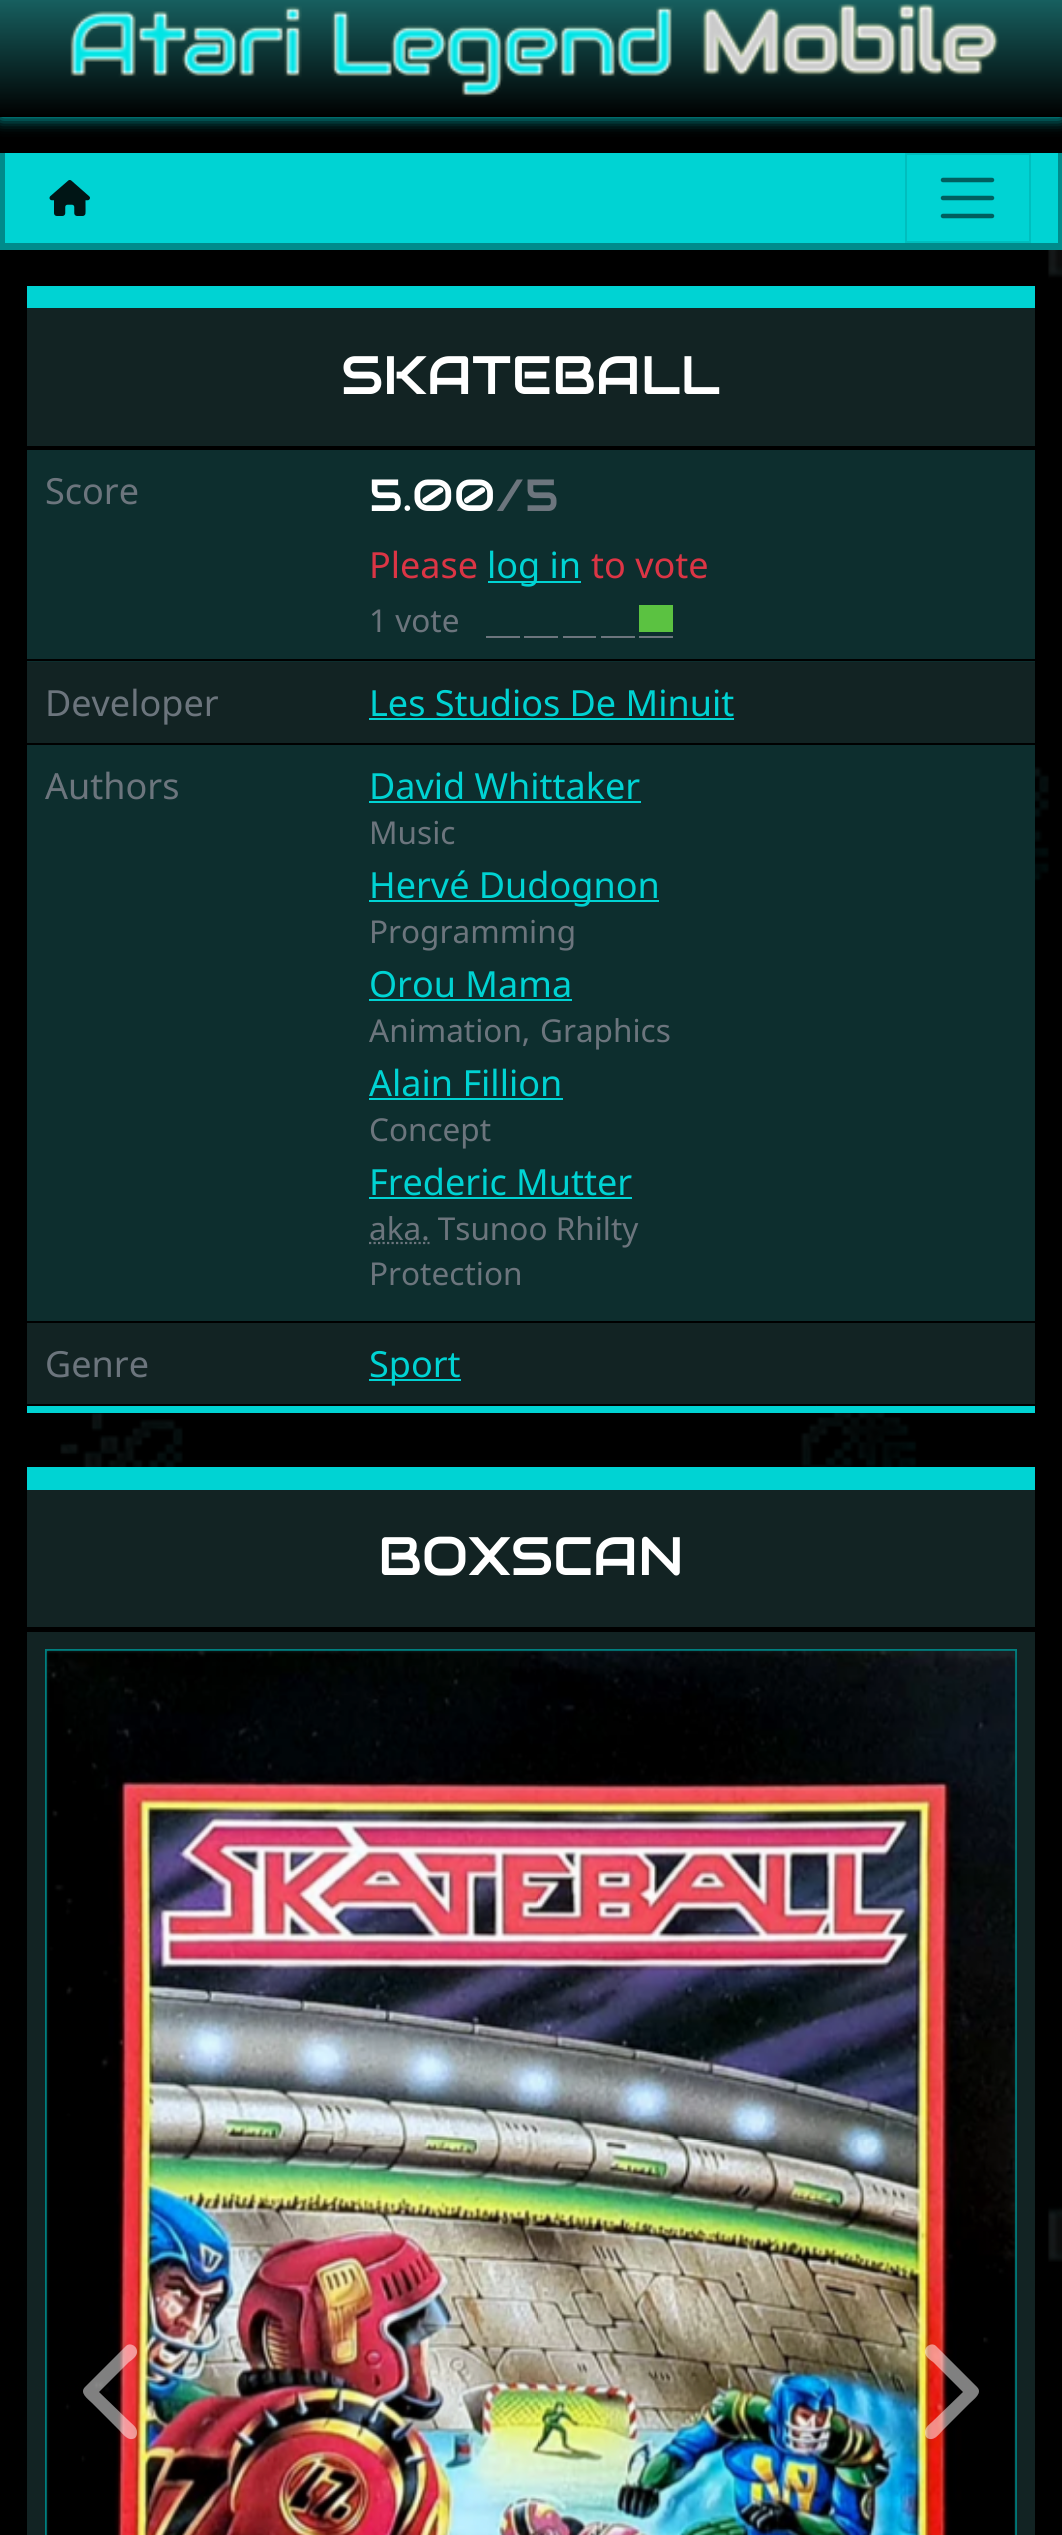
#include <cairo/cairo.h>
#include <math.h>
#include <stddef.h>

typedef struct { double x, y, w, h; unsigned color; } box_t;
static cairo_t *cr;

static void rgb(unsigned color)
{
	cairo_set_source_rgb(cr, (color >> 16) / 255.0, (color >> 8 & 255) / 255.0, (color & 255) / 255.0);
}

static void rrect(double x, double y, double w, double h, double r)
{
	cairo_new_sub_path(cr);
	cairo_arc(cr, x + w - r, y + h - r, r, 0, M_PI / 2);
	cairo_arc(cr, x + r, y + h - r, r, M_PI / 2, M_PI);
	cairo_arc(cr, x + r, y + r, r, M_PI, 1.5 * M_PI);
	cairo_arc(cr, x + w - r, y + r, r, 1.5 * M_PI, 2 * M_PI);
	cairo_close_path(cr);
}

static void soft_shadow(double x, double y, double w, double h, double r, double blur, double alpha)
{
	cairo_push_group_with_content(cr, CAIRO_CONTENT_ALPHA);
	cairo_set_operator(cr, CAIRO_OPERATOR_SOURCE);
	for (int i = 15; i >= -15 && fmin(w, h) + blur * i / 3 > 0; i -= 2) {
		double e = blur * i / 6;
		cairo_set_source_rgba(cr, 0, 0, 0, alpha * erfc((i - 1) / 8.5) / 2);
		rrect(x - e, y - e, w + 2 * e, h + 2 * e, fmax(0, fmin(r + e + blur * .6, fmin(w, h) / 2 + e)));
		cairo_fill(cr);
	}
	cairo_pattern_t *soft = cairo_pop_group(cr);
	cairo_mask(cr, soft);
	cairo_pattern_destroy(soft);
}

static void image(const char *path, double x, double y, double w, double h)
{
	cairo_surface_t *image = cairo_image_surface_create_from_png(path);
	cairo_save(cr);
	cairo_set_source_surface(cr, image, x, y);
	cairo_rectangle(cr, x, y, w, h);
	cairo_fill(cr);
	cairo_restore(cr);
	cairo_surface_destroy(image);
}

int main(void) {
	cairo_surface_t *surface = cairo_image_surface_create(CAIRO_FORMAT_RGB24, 1062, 2535);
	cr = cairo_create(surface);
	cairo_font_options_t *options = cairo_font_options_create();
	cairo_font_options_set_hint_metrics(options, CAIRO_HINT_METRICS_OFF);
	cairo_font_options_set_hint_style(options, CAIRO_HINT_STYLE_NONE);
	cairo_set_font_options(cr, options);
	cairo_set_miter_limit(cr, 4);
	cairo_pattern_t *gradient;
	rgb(0x000000);
	cairo_paint(cr);
	image("img/1.png", 60, 250, 1002, 2012);
	rgb(0x00d3d3);
	soft_shadow(0, 0, 1062, 117, 0, 8, 1);
	gradient = cairo_pattern_create_linear(531, 0, 531, 117);
	cairo_pattern_add_color_stop_rgba(gradient, 0, 0.09, 0.373, 0.373, 1);
	cairo_pattern_add_color_stop_rgba(gradient, 1, 0, 0, 0, 1);
	cairo_set_source(cr, gradient);
	cairo_pattern_destroy(gradient);
	cairo_rectangle(cr, 0, 0, 1062, 117);
	cairo_fill(cr);
	image("img/2.png", 70, 3, 929, 94);
	{
		static const box_t items[] = {
			{5, 153, 1053, 90, 0x00d3d3},
			{1058, 153, 4, 97, 0x008b8b},
			{0, 243, 1062, 7, 0x008b8b},
			{0, 153, 5, 97, 0x008b8b},
		};
		for (size_t i = 0; i < sizeof items / sizeof *items; i++) {
			rgb(items[i].color);
			cairo_rectangle(cr, items[i].x, items[i].y, items[i].w, items[i].h);
			cairo_fill(cr);
		}
	}
	image("img/3.png", 49, 180, 41, 36);
	cairo_rectangle(cr, 906, 154, 124, 88);
	rgb(0x00bebe);
	cairo_stroke(cr);
	cairo_new_path(cr);
	cairo_move_to(cr, 943, 180);
	cairo_line_to(cr, 992, 180);
	cairo_move_to(cr, 943, 198);
	cairo_line_to(cr, 992, 198);
	cairo_move_to(cr, 943, 216);
	cairo_line_to(cr, 992, 216);
	rgb(0x005f5f);
	cairo_set_line_width(cr, 4.5);
	cairo_set_line_cap(cr, CAIRO_LINE_CAP_ROUND);
	cairo_stroke(cr);
	{
		static const box_t items[] = {
			{27, 308, 1008, 1096, 0x122323},
			{27, 286, 1008, 22, 0x00d3d3},
			{27, 1406, 1008, 7, 0x00d3d3},
			{27, 446, 1008, 4, 0x000000},
			{27, 450, 1008, 212, 0x0d2e2e},
			{27, 659, 1008, 2, 0x000000},
			{488, 581, 93, 2, 0x00d3d3},
			{639, 605, 34, 27, 0x5bc241},
			{486, 636, 34, 2, 0x6c757d},
			{524, 636, 34, 2, 0x6c757d},
			{563, 636, 33, 2, 0x6c757d},
			{601, 636, 34, 2, 0x6c757d},
			{639, 636, 34, 2, 0x6c757d},
			{27, 743, 1008, 2, 0x000000},
			{369, 718, 365, 2, 0x00d3d3},
			{27, 745, 1008, 576, 0x0d2e2e},
			{27, 1321, 1008, 2, 0x000000},
			{369, 801, 272, 2, 0x00d3d3},
			{369, 900, 290, 2, 0x00d3d3},
			{369, 999, 203, 2, 0x00d3d3},
			{369, 1098, 194, 2, 0x00d3d3},
			{369, 1197, 263, 2, 0x00d3d3},
		};
		for (size_t i = 0; i < sizeof items / sizeof *items; i++) {
			rgb(items[i].color);
			cairo_rectangle(cr, items[i].x, items[i].y, items[i].w, items[i].h);
			cairo_fill(cr);
		}
	}
	cairo_new_path(cr);
	cairo_move_to(cr, 369, 1243);
	cairo_line_to(cr, 429.5, 1243);
	rgb(0x6c757d);
	cairo_set_line_width(cr, 2.2);
	cairo_set_line_cap(cr, CAIRO_LINE_CAP_BUTT);
	cairo_set_dash(cr, (double[]){2.25, 2.25}, 2, 0);
	cairo_stroke(cr);
	{
		static const box_t items[] = {
			{817, 1404, 93, 2, 0x000000},
			{369, 1379, 92, 2, 0x00d3d3},
			{27, 1490, 1008, 1045, 0x122323},
			{27, 1467, 1008, 23, 0x00d3d3},
			{27, 1627, 1008, 5, 0x000000},
		};
		for (size_t i = 0; i < sizeof items / sizeof *items; i++) {
			rgb(items[i].color);
			cairo_rectangle(cr, items[i].x, items[i].y, items[i].w, items[i].h);
			cairo_fill(cr);
		}
	}
	cairo_rectangle(cr, 46, 1650, 970, 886);
	rgb(0x007f7f);
	cairo_set_line_width(cr, 2);
	cairo_set_dash(cr, NULL, 0, 0);
	cairo_stroke(cr);
	image("img/4.png", 46, 1650, 971, 885);
	cairo_set_source_rgba(cr, 1, 1, 1, 0.5);
	cairo_new_path(cr);
	cairo_move_to(cr, 85, 2387);
	cairo_curve_to(cr, 79, 2393, 88, 2399, 92, 2403);
	cairo_line_to(cr, 119, 2430);
	cairo_curve_to(cr, 123, 2434, 128, 2442, 135, 2438);
	cairo_curve_to(cr, 137, 2436, 137, 2434, 137, 2432);
	cairo_curve_to(cr, 137, 2427, 132, 2424, 129, 2421);
	cairo_line_to(cr, 99, 2392);
	cairo_line_to(cr, 129, 2362);
	cairo_curve_to(cr, 132, 2360, 136, 2357, 137, 2353);
	cairo_curve_to(cr, 138, 2346, 130, 2342, 126, 2346);
	cairo_close_path(cr);
	cairo_fill(cr);
	cairo_new_path(cr);
	cairo_move_to(cr, 977, 2387);
	cairo_curve_to(cr, 983, 2393, 974, 2399, 970, 2403);
	cairo_line_to(cr, 943, 2430);
	cairo_curve_to(cr, 939, 2434, 934, 2442, 927, 2438);
	cairo_curve_to(cr, 925, 2436, 925, 2434, 925, 2432);
	cairo_curve_to(cr, 925, 2427, 930, 2424, 933, 2421);
	cairo_line_to(cr, 963, 2392);
	cairo_line_to(cr, 933, 2362);
	cairo_curve_to(cr, 930, 2360, 926, 2357, 925, 2353);
	cairo_curve_to(cr, 924, 2346, 932, 2342, 936, 2346);
	cairo_close_path(cr);
	cairo_fill(cr);
	cairo_select_font_face(cr, "Audiowide", CAIRO_FONT_SLANT_NORMAL, CAIRO_FONT_WEIGHT_NORMAL);
	cairo_set_font_size(cr, 54);
	rgb(0xffffff);
	cairo_move_to(cr, 341, 394);
	cairo_show_text(cr, "SKATEBALL");
	cairo_select_font_face(cr, "Noto Sans", CAIRO_FONT_SLANT_NORMAL, CAIRO_FONT_WEIGHT_NORMAL);
	cairo_set_font_size(cr, 36);
	rgb(0x6c757d);
	cairo_move_to(cr, 45, 504);
	cairo_show_text(cr, "Score");
	cairo_select_font_face(cr, "Audiowide", CAIRO_FONT_SLANT_NORMAL, CAIRO_FONT_WEIGHT_NORMAL);
	cairo_set_font_size(cr, 45);
	rgb(0xffffff);
	cairo_move_to(cr, 369, 511);
	cairo_show_text(cr, "5.00");
	rgb(0x6c757d);
	cairo_move_to(cr, 495, 511);
	cairo_show_text(cr, "/5");
	cairo_select_font_face(cr, "Noto Sans", CAIRO_FONT_SLANT_NORMAL, CAIRO_FONT_WEIGHT_NORMAL);
	cairo_set_font_size(cr, 36);
	rgb(0xdc3545);
	cairo_move_to(cr, 369, 578);
	cairo_show_text(cr, "Please");
	rgb(0x00d3d3);
	cairo_move_to(cr, 487, 578);
	cairo_show_text(cr, "log in");
	rgb(0xdc3545);
	cairo_move_to(cr, 591, 578);
	cairo_show_text(cr, "to vote");
	cairo_set_font_size(cr, 31.5);
	rgb(0x6c757d);
	cairo_move_to(cr, 369, 632);
	cairo_show_text(cr, "1 vote");
	cairo_set_font_size(cr, 36);
	cairo_move_to(cr, 45, 716);
	cairo_show_text(cr, "Developer");
	rgb(0x00d3d3);
	cairo_move_to(cr, 369, 716);
	cairo_show_text(cr, "Les Studios De Minuit");
	rgb(0x6c757d);
	cairo_move_to(cr, 45, 799);
	cairo_show_text(cr, "Authors");
	rgb(0x00d3d3);
	cairo_move_to(cr, 369, 799);
	cairo_show_text(cr, "David Whittaker");
	cairo_set_font_size(cr, 31.5);
	rgb(0x6c757d);
	cairo_move_to(cr, 369, 844);
	cairo_show_text(cr, "Music");
	cairo_set_font_size(cr, 36);
	rgb(0x00d3d3);
	cairo_move_to(cr, 369, 898);
	cairo_show_text(cr, "Hervé Dudognon");
	cairo_set_font_size(cr, 31.5);
	rgb(0x6c757d);
	cairo_move_to(cr, 369, 943);
	cairo_show_text(cr, "Programming");
	cairo_set_font_size(cr, 36);
	rgb(0x00d3d3);
	cairo_move_to(cr, 369, 997);
	cairo_show_text(cr, "Orou Mama");
	cairo_set_font_size(cr, 31.5);
	rgb(0x6c757d);
	cairo_move_to(cr, 369, 1042);
	cairo_show_text(cr, "Animation,");
	cairo_move_to(cr, 540, 1042);
	cairo_show_text(cr, "Graphics");
	cairo_set_font_size(cr, 36);
	rgb(0x00d3d3);
	cairo_move_to(cr, 369, 1096);
	cairo_show_text(cr, "Alain Fillion");
	cairo_set_font_size(cr, 31.5);
	rgb(0x6c757d);
	cairo_move_to(cr, 369, 1141);
	cairo_show_text(cr, "Concept");
	cairo_set_font_size(cr, 36);
	rgb(0x00d3d3);
	cairo_move_to(cr, 369, 1195);
	cairo_show_text(cr, "Frederic Mutter");
	cairo_set_font_size(cr, 31.5);
	rgb(0x6c757d);
	cairo_move_to(cr, 369, 1240);
	cairo_show_text(cr, "aka. Tsunoo Rhilty");
	cairo_move_to(cr, 369, 1285);
	cairo_show_text(cr, "Protection");
	cairo_set_font_size(cr, 36);
	cairo_move_to(cr, 45, 1377);
	cairo_show_text(cr, "Genre");
	rgb(0x00d3d3);
	cairo_move_to(cr, 369, 1377);
	cairo_show_text(cr, "Sport");
	cairo_select_font_face(cr, "Audiowide", CAIRO_FONT_SLANT_NORMAL, CAIRO_FONT_WEIGHT_NORMAL);
	cairo_set_font_size(cr, 54);
	rgb(0xffffff);
	cairo_move_to(cr, 378, 1575);
	cairo_show_text(cr, "BOXSCAN");
	cairo_surface_write_to_png(surface, "page.png");
	cairo_font_options_destroy(options);
	cairo_destroy(cr);
	cairo_surface_destroy(surface);
	return 0;
}
